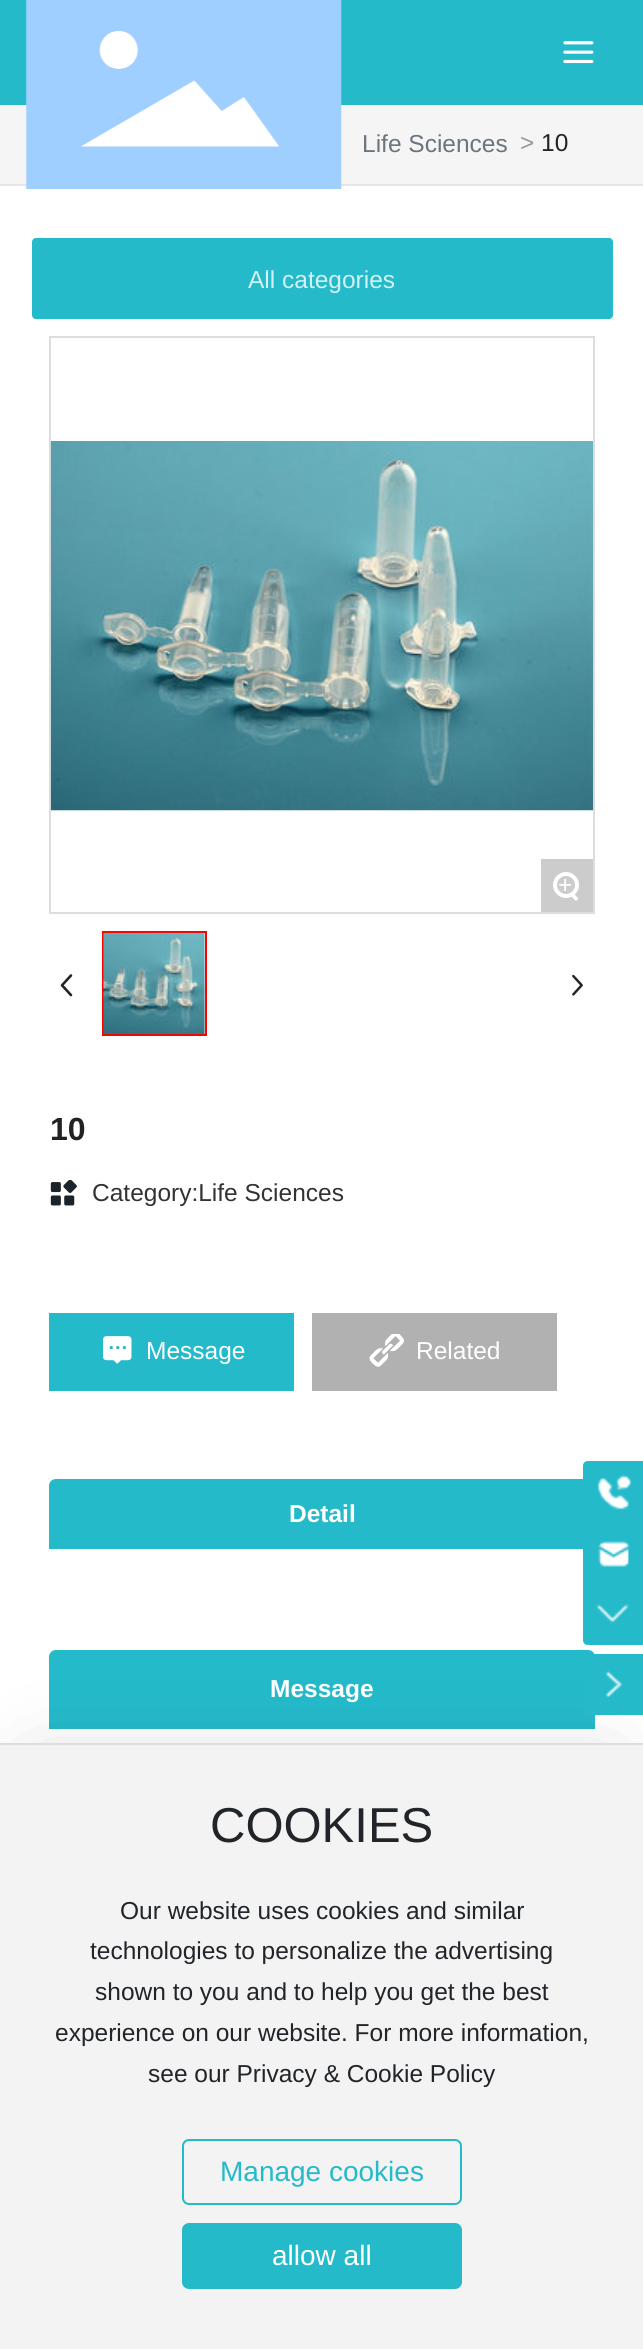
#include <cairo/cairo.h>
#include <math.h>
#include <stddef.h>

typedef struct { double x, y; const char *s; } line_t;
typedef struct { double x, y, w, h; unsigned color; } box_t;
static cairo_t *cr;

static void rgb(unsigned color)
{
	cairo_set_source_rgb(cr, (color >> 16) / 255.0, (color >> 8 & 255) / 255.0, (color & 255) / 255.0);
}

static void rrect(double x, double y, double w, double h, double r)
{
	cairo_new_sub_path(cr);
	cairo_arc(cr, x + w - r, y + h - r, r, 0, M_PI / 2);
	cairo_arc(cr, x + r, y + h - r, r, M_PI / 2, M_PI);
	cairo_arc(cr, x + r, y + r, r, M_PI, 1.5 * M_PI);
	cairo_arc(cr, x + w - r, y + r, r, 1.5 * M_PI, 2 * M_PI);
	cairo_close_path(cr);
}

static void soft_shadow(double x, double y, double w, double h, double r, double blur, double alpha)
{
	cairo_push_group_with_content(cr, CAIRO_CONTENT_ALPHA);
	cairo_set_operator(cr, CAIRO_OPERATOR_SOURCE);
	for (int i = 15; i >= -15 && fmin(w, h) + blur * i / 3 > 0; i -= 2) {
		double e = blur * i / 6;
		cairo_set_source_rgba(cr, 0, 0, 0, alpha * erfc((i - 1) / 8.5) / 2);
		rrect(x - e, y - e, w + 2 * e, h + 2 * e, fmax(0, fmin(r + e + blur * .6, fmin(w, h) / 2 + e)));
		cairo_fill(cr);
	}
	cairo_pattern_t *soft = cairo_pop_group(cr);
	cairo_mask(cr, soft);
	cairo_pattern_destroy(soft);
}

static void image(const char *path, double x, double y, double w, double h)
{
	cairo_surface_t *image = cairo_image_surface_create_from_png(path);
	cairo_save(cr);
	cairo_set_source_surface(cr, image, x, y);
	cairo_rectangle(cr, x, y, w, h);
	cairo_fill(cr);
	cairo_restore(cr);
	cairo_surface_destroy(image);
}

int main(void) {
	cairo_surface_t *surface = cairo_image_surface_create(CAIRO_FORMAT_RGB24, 643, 2349);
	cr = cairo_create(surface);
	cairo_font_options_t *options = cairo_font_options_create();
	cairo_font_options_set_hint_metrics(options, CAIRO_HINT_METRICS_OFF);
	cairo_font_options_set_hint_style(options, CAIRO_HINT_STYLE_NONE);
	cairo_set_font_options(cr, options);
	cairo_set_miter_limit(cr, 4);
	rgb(0xffffff);
	cairo_paint(cr);
	{
		static const box_t items[] = {
			{0, 0, 643, 105, 0x24baca},
			{0, 105, 643, 79, 0xf5f5f5},
			{0, 184, 643, 2, 0xe5e5e5},
		};
		for (size_t i = 0; i < sizeof items / sizeof *items; i++) {
			rgb(items[i].color);
			cairo_rectangle(cr, items[i].x, items[i].y, items[i].w, items[i].h);
			cairo_fill(cr);
		}
	}
	image("img/1.png", 26, 0, 316, 189);
	image("img/2.png", 563, 41, 31, 23);
	rgb(0x24baca);
	rrect(32, 238, 581, 81, 4);
	cairo_fill(cr);
	cairo_rectangle(cr, 50, 337, 544, 576);
	rgb(0xdddddd);
	cairo_stroke(cr);
	image("img/3.png", 50, 441, 544, 370);
	rgb(0xcccccc);
	cairo_rectangle(cr, 541, 859, 52, 53);
	cairo_fill(cr);
	cairo_arc(cr, 566, 885, 11, 0, 2 * M_PI);
	rgb(0xffffff);
	cairo_set_line_width(cr, 4);
	cairo_stroke(cr);
	cairo_new_path(cr);
	cairo_move_to(cr, 572.5, 892.5);
	cairo_line_to(cr, 578.5, 898.5);
	cairo_line_to(cr, 576, 901);
	cairo_line_to(cr, 570, 895);
	cairo_close_path(cr);
	cairo_fill(cr);
	cairo_rectangle(cr, 103, 932, 103, 103);
	rgb(0xff0000);
	cairo_set_line_width(cr, 2);
	cairo_stroke(cr);
	image("img/4.png", 103, 932, 102, 103);
	image("img/5.png", 60, 974, 13, 23);
	image("img/6.png", 572, 974, 11, 22);
	image("img/7.png", 50, 1180, 27, 26);
	rgb(0x24baca);
	cairo_rectangle(cr, 49, 1313, 245, 78);
	cairo_fill(cr);
	image("img/8.png", 103, 1336, 29, 28);
	rgb(0xb1b1b1);
	cairo_rectangle(cr, 312, 1313, 245, 78);
	cairo_fill(cr);
	image("img/9.png", 369, 1334, 35, 33);
	rgb(0x24baca);
	cairo_new_path(cr);
	cairo_move_to(cr, 56, 1479);
	cairo_line_to(cr, 588, 1479);
	cairo_curve_to(cr, 592, 1479, 595, 1482, 595, 1486);
	cairo_line_to(cr, 595, 1549);
	cairo_line_to(cr, 49, 1549);
	cairo_line_to(cr, 49, 1486);
	cairo_curve_to(cr, 49, 1482, 52, 1479, 56, 1479);
	cairo_close_path(cr);
	cairo_fill(cr);
	cairo_new_path(cr);
	cairo_move_to(cr, 56, 1650);
	cairo_line_to(cr, 588, 1650);
	cairo_curve_to(cr, 592, 1650, 595, 1653, 595, 1657);
	cairo_line_to(cr, 595, 1729);
	cairo_line_to(cr, 49, 1729);
	cairo_line_to(cr, 49, 1657);
	cairo_curve_to(cr, 49, 1653, 52, 1650, 56, 1650);
	cairo_close_path(cr);
	cairo_fill(cr);
	rgb(0x000000);
	soft_shadow(37, 1773, 570, 534, 0, 44, 0.2);
	rgb(0x24baca);
	cairo_new_path(cr);
	cairo_move_to(cr, 588, 1461);
	cairo_line_to(cr, 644, 1461);
	cairo_line_to(cr, 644, 1645);
	cairo_line_to(cr, 588, 1645);
	cairo_curve_to(cr, 585, 1645, 583, 1643, 583, 1640);
	cairo_line_to(cr, 583, 1466);
	cairo_curve_to(cr, 583, 1463, 585, 1461, 588, 1461);
	cairo_close_path(cr);
	cairo_fill(cr);
	image("img/10.png", 597, 1474, 35, 36);
	image("img/11.png", 598, 1541, 32, 26);
	image("img/12.png", 596, 1604, 33, 19);
	cairo_new_path(cr);
	cairo_move_to(cr, 588, 1654);
	cairo_line_to(cr, 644, 1654);
	cairo_line_to(cr, 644, 1715);
	cairo_line_to(cr, 588, 1715);
	cairo_curve_to(cr, 585, 1715, 583, 1713, 583, 1710);
	cairo_line_to(cr, 583, 1659);
	cairo_curve_to(cr, 583, 1656, 585, 1654, 588, 1654);
	cairo_close_path(cr);
	cairo_fill(cr);
	image("img/13.png", 605, 1670, 17, 28);
	rgb(0xf3f3f3);
	cairo_rectangle(cr, 0, 1745, 643, 604);
	cairo_fill(cr);
	rgb(0xdddddd);
	cairo_rectangle(cr, 0, 1743, 643, 2);
	cairo_fill(cr);
	rrect(183, 2140, 278, 64, 6);
	rgb(0x24baca);
	cairo_stroke(cr);
	rrect(183, 2224, 278, 64, 6);
	cairo_fill_preserve(cr);
	cairo_stroke(cr);
	cairo_select_font_face(cr, "Liberation Sans", CAIRO_FONT_SLANT_NORMAL, CAIRO_FONT_WEIGHT_NORMAL);
	cairo_set_font_size(cr, 24.5);
	rgb(0x6c757d);
	cairo_move_to(cr, 362, 152);
	cairo_show_text(cr, "Life Sciences");
	rgb(0x999999);
	cairo_move_to(cr, 520, 151);
	cairo_show_text(cr, ">");
	rgb(0x212529);
	cairo_move_to(cr, 541, 151);
	cairo_show_text(cr, "10");
	rgb(0xd3f1f4);
	cairo_move_to(cr, 248, 288);
	cairo_show_text(cr, "All categories");
	rgb(0xffffff);
	cairo_move_to(cr, 558, 893);
	cairo_show_text(cr, "+");
	cairo_select_font_face(cr, "Liberation Sans", CAIRO_FONT_SLANT_NORMAL, CAIRO_FONT_WEIGHT_BOLD);
	cairo_set_font_size(cr, 32);
	rgb(0x222222);
	cairo_move_to(cr, 50, 1140);
	cairo_show_text(cr, "10");
	cairo_select_font_face(cr, "Liberation Sans", CAIRO_FONT_SLANT_NORMAL, CAIRO_FONT_WEIGHT_NORMAL);
	cairo_set_font_size(cr, 24.5);
	rgb(0x333333);
	cairo_move_to(cr, 92, 1201);
	cairo_show_text(cr, "Category:Life Sciences");
	rgb(0xffffff);
	cairo_move_to(cr, 146, 1359);
	cairo_show_text(cr, "Message");
	cairo_move_to(cr, 416, 1359);
	cairo_show_text(cr, "Related");
	cairo_select_font_face(cr, "Liberation Sans", CAIRO_FONT_SLANT_NORMAL, CAIRO_FONT_WEIGHT_BOLD);
	cairo_move_to(cr, 289, 1522);
	cairo_show_text(cr, "Detail");
	cairo_move_to(cr, 270, 1697);
	cairo_show_text(cr, "Message");
	cairo_select_font_face(cr, "Liberation Sans", CAIRO_FONT_SLANT_NORMAL, CAIRO_FONT_WEIGHT_NORMAL);
	cairo_set_font_size(cr, 49);
	rgb(0x212529);
	cairo_move_to(cr, 210, 1842);
	cairo_show_text(cr, "COOKIES");
	cairo_set_font_size(cr, 24.5);
	{
		static const line_t items[] = {
			{120, 1919, "Our website uses cookies and similar"},
			{90, 1959, "technologies to personalize the advertising"},
			{95, 2000, "shown to you and to help you get the best"},
			{55, 2041, "experience on our website. For more information,"},
			{148, 2082, "see our Privacy & Cookie Policy"},
		};
		for (size_t i = 0; i < sizeof items / sizeof *items; i++) {
			cairo_move_to(cr, items[i].x, items[i].y);
			cairo_show_text(cr, items[i].s);
		}
	}
	cairo_set_font_size(cr, 28);
	rgb(0x24baca);
	cairo_move_to(cr, 220, 2181);
	cairo_show_text(cr, "Manage cookies");
	rgb(0xffffff);
	cairo_move_to(cr, 272, 2265);
	cairo_show_text(cr, "allow all");
	cairo_surface_write_to_png(surface, "page.png");
	cairo_font_options_destroy(options);
	cairo_destroy(cr);
	cairo_surface_destroy(surface);
	return 0;
}
